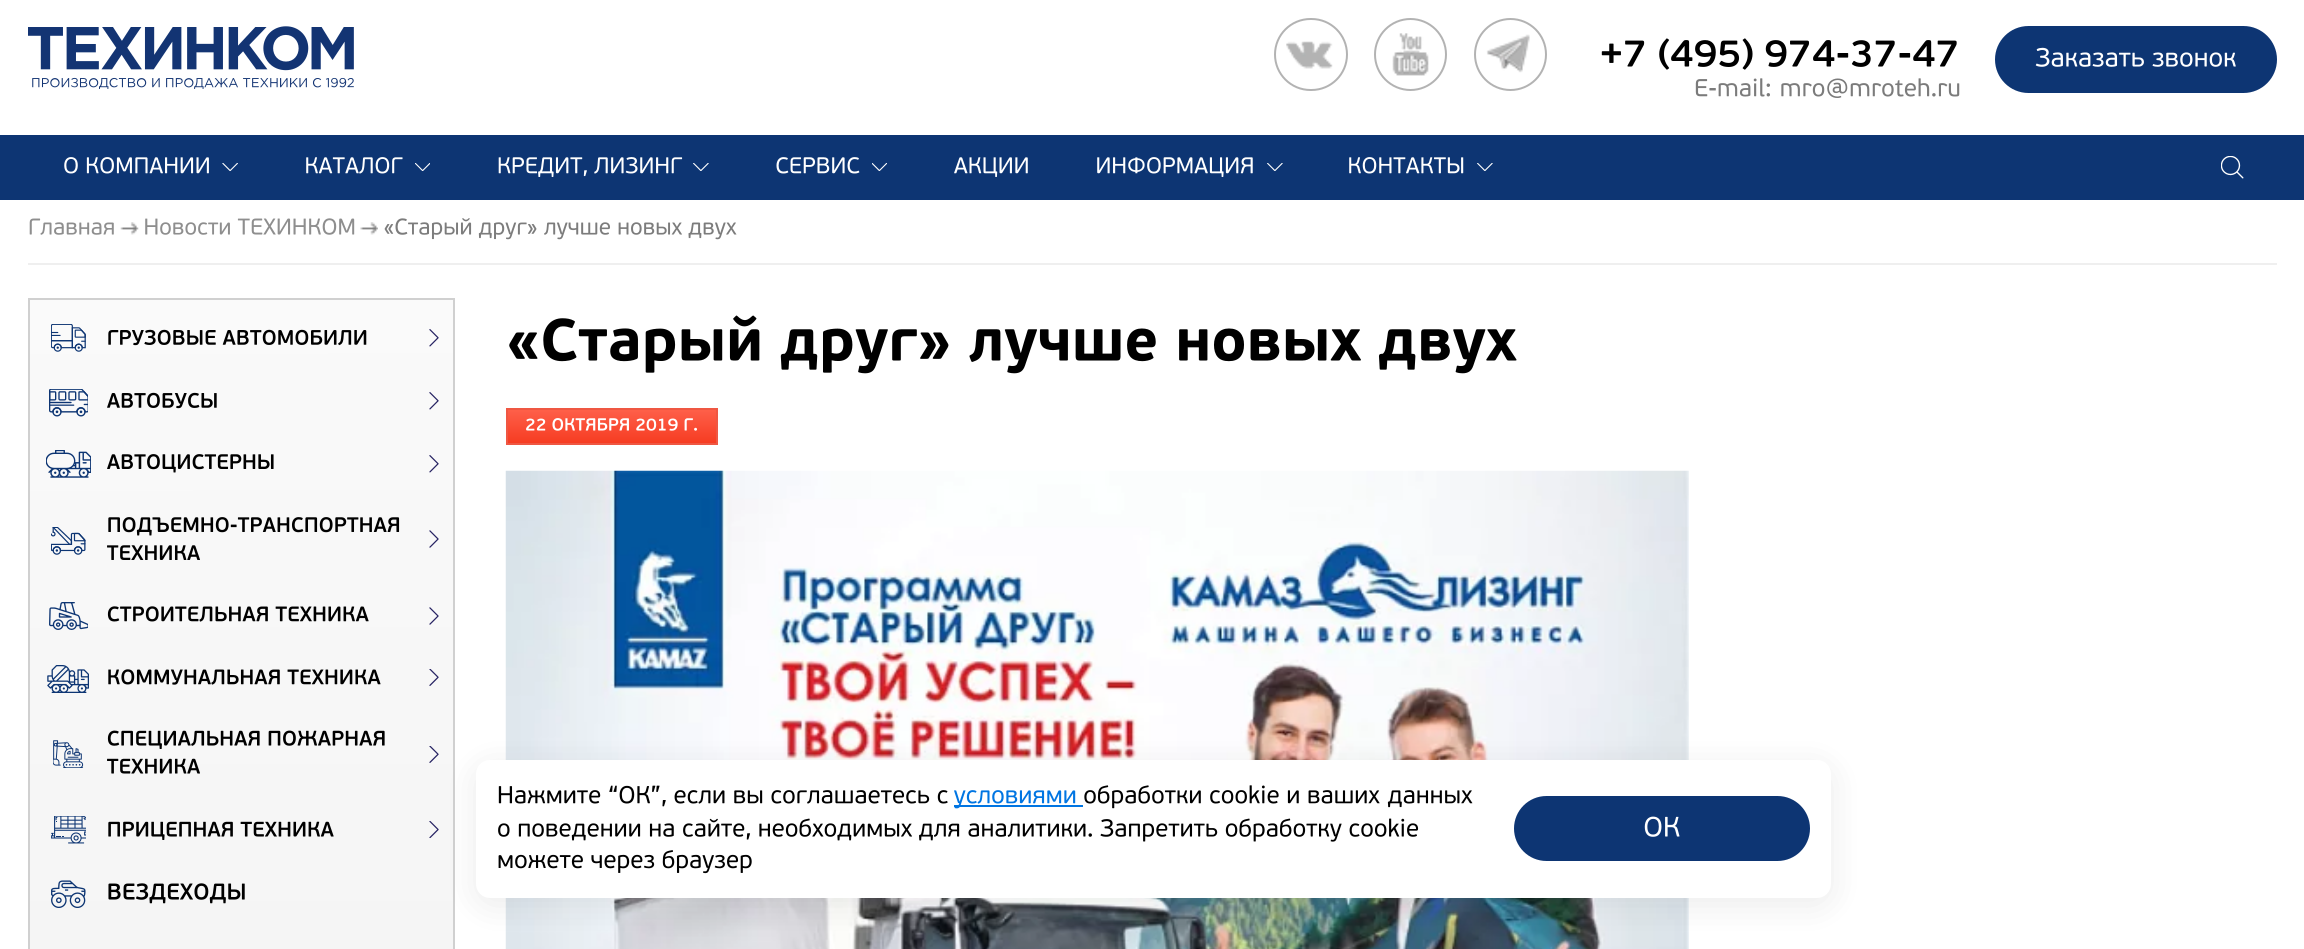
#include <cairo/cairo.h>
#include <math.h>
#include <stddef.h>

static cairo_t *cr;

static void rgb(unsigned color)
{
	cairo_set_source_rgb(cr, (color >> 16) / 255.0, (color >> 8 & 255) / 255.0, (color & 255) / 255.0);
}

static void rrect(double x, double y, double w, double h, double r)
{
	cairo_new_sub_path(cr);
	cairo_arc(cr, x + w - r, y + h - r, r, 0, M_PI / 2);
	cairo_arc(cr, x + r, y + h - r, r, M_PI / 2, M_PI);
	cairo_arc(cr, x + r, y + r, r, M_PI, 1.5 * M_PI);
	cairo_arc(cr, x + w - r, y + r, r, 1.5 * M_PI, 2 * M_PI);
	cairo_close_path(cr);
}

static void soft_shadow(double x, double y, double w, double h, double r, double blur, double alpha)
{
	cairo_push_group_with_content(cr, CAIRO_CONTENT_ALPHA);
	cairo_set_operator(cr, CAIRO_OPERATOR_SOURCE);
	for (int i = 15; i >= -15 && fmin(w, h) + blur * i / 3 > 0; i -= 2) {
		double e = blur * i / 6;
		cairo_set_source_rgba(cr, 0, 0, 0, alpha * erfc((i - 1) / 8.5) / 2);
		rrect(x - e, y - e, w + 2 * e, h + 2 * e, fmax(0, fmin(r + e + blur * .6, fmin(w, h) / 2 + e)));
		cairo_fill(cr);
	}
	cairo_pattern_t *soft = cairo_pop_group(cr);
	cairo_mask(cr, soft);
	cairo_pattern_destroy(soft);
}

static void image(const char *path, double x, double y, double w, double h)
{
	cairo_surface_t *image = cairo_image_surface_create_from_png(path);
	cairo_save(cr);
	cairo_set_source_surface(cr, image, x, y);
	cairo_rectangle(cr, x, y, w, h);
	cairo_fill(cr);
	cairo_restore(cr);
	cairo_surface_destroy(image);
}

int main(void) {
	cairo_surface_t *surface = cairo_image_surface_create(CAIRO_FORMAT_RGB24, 2304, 949);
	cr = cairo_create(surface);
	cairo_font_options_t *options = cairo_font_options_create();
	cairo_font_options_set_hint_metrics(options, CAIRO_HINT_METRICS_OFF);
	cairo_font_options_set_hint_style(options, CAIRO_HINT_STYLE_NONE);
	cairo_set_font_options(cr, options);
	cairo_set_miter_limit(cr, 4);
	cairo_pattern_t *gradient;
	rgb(0xffffff);
	cairo_paint(cr);
	image("img/1.png", 28, 26, 326, 63);
	image("img/2.png", 1286, 41, 47, 28);
	rrect(1275, 19, 72, 71, 35.5);
	rgb(0xb3b3b3);
	cairo_stroke(cr);
	image("img/3.png", 1392, 33, 37, 43);
	cairo_arc(cr, 1410.5, 54.5, 35.5, 0, 2 * M_PI);
	cairo_stroke(cr);
	image("img/4.png", 1486, 34, 44, 39);
	cairo_arc(cr, 1510.5, 54.5, 35.5, 0, 2 * M_PI);
	cairo_stroke(cr);
	image("img/5.png", 1601, 38, 356, 32);
	image("img/6.png", 1695, 78, 75, 19);
	image("img/7.png", 1781, 78, 179, 20);
	rgb(0x0d3573);
	rrect(1995, 26, 282, 67, 33.5);
	cairo_fill(cr);
	image("img/8.png", 2035, 47, 201, 20);
	cairo_rectangle(cr, 0, 135, 2304, 65);
	cairo_fill(cr);
	image("img/9.png", 64, 157, 145, 17);
	image("img/10.png", 222, 163, 16, 8);
	image("img/11.png", 306, 157, 97, 17);
	image("img/12.png", 415, 163, 15, 8);
	image("img/13.png", 498, 157, 185, 20);
	image("img/14.png", 693, 163, 16, 8);
	image("img/15.png", 776, 157, 84, 17);
	image("img/16.png", 872, 163, 15, 8);
	image("img/17.png", 954, 157, 74, 20);
	image("img/18.png", 1097, 157, 156, 20);
	image("img/14.png", 1267, 163, 16, 8);
	image("img/19.png", 1349, 157, 115, 17);
	image("img/14.png", 1477, 163, 16, 8);
	image("img/20.png", 2221, 156, 23, 23);
	image("img/21.png", 29, 218, 85, 17);
	image("img/22.png", 120, 222, 19, 13);
	image("img/23.png", 145, 218, 210, 17);
	image("img/24.png", 360, 222, 18, 13);
	image("img/25.png", 384, 218, 353, 22);
	rgb(0xefefef);
	cairo_rectangle(cr, 28, 263, 2249, 2);
	cairo_fill(cr);
	gradient = cairo_pattern_create_linear(241, 299, 242, 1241);
	cairo_pattern_add_color_stop_rgba(gradient, 0, 0.98, 0.98, 0.98, 1);
	cairo_pattern_add_color_stop_rgba(gradient, 1, 0.953, 0.953, 0.953, 1);
	cairo_set_source(cr, gradient);
	cairo_pattern_destroy(gradient);
	cairo_rectangle(cr, 30, 300, 423, 649);
	cairo_fill(cr);
	cairo_rectangle(cr, 29, 299, 425, 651);
	rgb(0xd0d0d0);
	cairo_stroke(cr);
	image("img/26.png", 51, 324, 35, 28);
	image("img/27.png", 108, 329, 259, 17);
	image("img/28.png", 429, 329, 10, 18);
	image("img/29.png", 49, 389, 39, 28);
	image("img/30.png", 107, 392, 110, 17);
	image("img/31.png", 429, 392, 10, 18);
	image("img/32.png", 46, 450, 45, 28);
	image("img/33.png", 107, 454, 167, 19);
	image("img/31.png", 429, 455, 10, 18);
	image("img/34.png", 51, 527, 35, 28);
	image("img/35.png", 108, 517, 292, 19);
	image("img/36.png", 429, 530, 10, 18);
	image("img/37.png", 107, 545, 93, 15);
	image("img/38.png", 49, 602, 39, 28);
	image("img/39.png", 107, 606, 262, 16);
	image("img/36.png", 429, 607, 10, 18);
	image("img/40.png", 47, 665, 42, 28);
	image("img/41.png", 108, 669, 273, 16);
	image("img/42.png", 429, 669, 10, 17);
	image("img/43.png", 53, 740, 31, 28);
	image("img/44.png", 107, 730, 278, 19);
	image("img/42.png", 429, 746, 10, 17);
	image("img/45.png", 107, 758, 93, 16);
	image("img/46.png", 51, 816, 35, 28);
	image("img/47.png", 108, 821, 226, 19);
	image("img/48.png", 429, 821, 10, 17);
	image("img/49.png", 51, 880, 35, 28);
	image("img/50.png", 108, 883, 137, 21);
	image("img/51.png", 509, 315, 1008, 59);
	gradient = cairo_pattern_create_linear(612, 410, 612, 443);
	cairo_pattern_add_color_stop_rgba(gradient, 0, 0.996, 0.373, 0.286, 1);
	cairo_pattern_add_color_stop_rgba(gradient, 1, 0.965, 0.235, 0.133, 1);
	cairo_set_source(cr, gradient);
	cairo_pattern_destroy(gradient);
	cairo_rectangle(cr, 508, 410, 208, 33);
	cairo_fill(cr);
	cairo_rectangle(cr, 507, 409, 210, 35);
	rgb(0xef5743);
	cairo_stroke(cr);
	image("img/52.png", 526, 418, 171, 13);
	image("img/53.png", 505, 470, 1184, 479);
	rgb(0x000000);
	soft_shadow(476, 767, 1355, 138, 14, 17.5, 0.08);
	rgb(0xffffff);
	rrect(476, 760, 1355, 138, 14);
	cairo_fill(cr);
	image("img/54.png", 498, 785, 450, 22);
	rgb(0x0075e2);
	cairo_rectangle(cr, 954, 805, 129, 2);
	cairo_fill(cr);
	image("img/55.png", 954, 790, 122, 19);
	image("img/56.png", 1084, 785, 296, 24);
	image("img/57.png", 1387, 790, 86, 18);
	image("img/58.png", 498, 818, 921, 24);
	image("img/59.png", 498, 850, 254, 24);
	rgb(0x0d3573);
	rrect(1514, 796, 296, 65, 32.5);
	cairo_fill(cr);
	image("img/60.png", 1644, 816, 36, 21);
	cairo_surface_write_to_png(surface, "page.png");
	cairo_font_options_destroy(options);
	cairo_destroy(cr);
	cairo_surface_destroy(surface);
	return 0;
}
